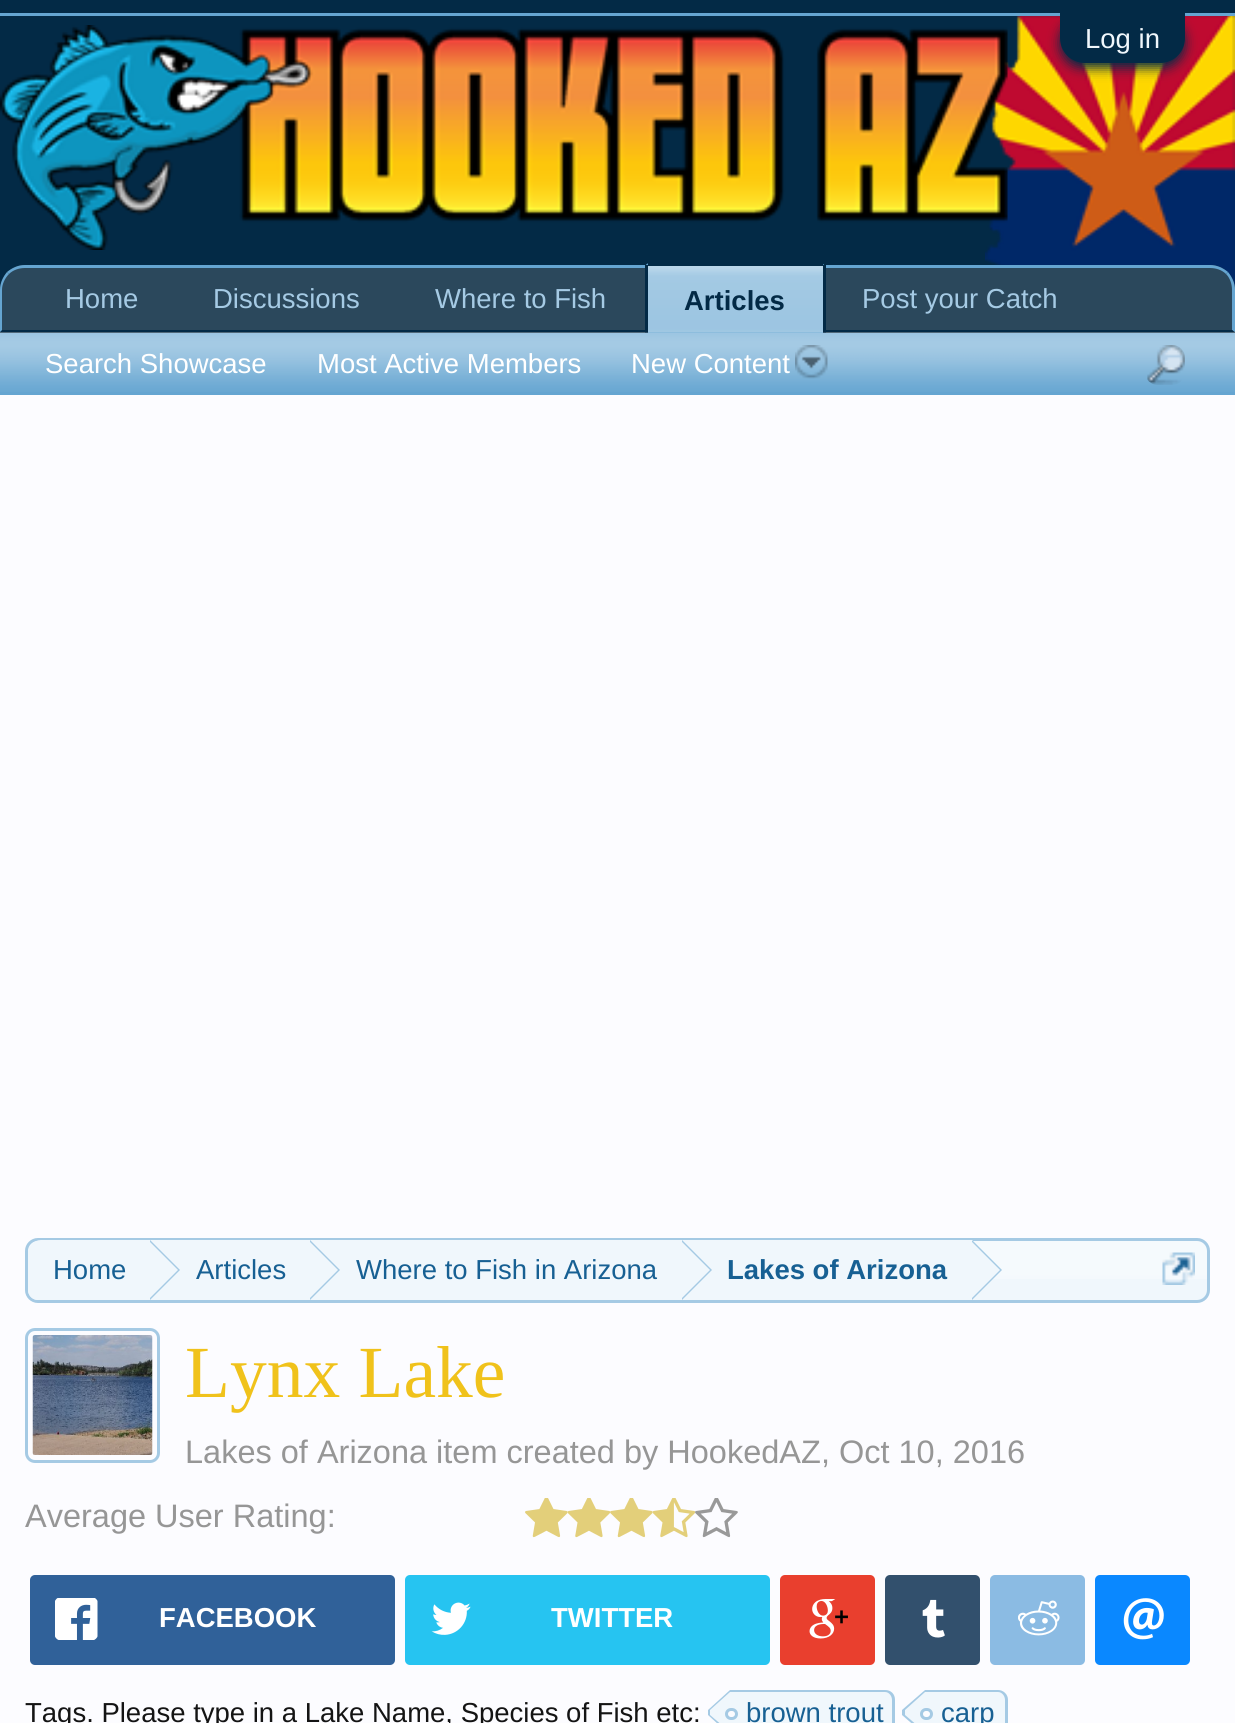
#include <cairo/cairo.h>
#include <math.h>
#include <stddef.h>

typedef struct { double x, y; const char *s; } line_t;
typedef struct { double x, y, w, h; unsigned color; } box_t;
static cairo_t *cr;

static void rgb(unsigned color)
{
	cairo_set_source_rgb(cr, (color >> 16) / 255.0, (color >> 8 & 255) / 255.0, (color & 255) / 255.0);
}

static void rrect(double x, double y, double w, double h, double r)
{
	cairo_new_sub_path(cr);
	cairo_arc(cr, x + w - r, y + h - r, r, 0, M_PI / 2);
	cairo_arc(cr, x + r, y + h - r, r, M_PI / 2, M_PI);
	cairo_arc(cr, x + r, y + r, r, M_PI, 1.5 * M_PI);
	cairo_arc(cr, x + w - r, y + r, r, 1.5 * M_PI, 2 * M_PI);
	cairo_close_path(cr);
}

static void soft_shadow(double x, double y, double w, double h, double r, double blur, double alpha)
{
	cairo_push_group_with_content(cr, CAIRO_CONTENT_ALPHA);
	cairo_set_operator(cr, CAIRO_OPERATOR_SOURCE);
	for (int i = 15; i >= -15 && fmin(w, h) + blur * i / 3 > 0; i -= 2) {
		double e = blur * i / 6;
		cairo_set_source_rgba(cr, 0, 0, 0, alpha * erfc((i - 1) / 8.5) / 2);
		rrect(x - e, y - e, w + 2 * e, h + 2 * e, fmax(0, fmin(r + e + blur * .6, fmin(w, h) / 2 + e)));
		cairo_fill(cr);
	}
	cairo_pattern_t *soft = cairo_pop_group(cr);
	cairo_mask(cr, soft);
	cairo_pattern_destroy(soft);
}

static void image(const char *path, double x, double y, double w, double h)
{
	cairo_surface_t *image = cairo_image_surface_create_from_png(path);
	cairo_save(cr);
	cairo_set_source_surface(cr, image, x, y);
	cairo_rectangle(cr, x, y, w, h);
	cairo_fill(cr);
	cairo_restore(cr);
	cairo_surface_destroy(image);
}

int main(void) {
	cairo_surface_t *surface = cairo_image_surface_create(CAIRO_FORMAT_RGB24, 1235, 1723);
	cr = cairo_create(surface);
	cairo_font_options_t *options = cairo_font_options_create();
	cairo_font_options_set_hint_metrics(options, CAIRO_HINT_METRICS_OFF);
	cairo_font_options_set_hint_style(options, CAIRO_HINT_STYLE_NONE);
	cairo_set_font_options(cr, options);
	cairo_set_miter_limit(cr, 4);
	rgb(0xfcfcff);
	cairo_paint(cr);
	{
		static const box_t items[] = {
			{0, 0, 1235, 13, 0x032a46},
			{0, 13, 1235, 3, 0x65a5d1},
			{0, 16, 1235, 274, 0x032a46},
		};
		for (size_t i = 0; i < sizeof items / sizeof *items; i++) {
			rgb(items[i].color);
			cairo_rectangle(cr, items[i].x, items[i].y, items[i].w, items[i].h);
			cairo_fill(cr);
		}
	}
	image("img/1.png", 985, 16, 250, 274);
	rgb(0x032a46);
	soft_shadow(1060, 18, 125, 50, 25, 6, 1);
	rgb(0x032a46);
	cairo_new_path(cr);
	cairo_move_to(cr, 1060, 13);
	cairo_line_to(cr, 1185, 13);
	cairo_line_to(cr, 1185, 38);
	cairo_curve_to(cr, 1185, 52, 1174, 63, 1160, 63);
	cairo_line_to(cr, 1085, 63);
	cairo_curve_to(cr, 1071, 63, 1060, 52, 1060, 38);
	cairo_close_path(cr);
	cairo_fill(cr);
	image("img/2.png", 0, 25, 1008, 225);
	rgb(0x2b485c);
	cairo_new_path(cr);
	cairo_move_to(cr, 25, 265);
	cairo_line_to(cr, 1210, 265);
	cairo_curve_to(cr, 1224, 265, 1235, 276, 1235, 290);
	cairo_line_to(cr, 1235, 333);
	cairo_line_to(cr, 0, 333);
	cairo_line_to(cr, 0, 290);
	cairo_curve_to(cr, 0, 276, 11, 265, 25, 265);
	cairo_close_path(cr);
	cairo_fill(cr);
	rgb(0x65a5d1);
	cairo_new_path(cr);
	cairo_move_to(cr, 25, 265);
	cairo_curve_to(cr, 18, 265, 12, 268, 7, 272);
	cairo_line_to(cr, 9, 274);
	cairo_curve_to(cr, 13, 270, 19, 268, 25, 268);
	cairo_line_to(cr, 1210, 268);
	cairo_curve_to(cr, 1216, 268, 1222, 270, 1226, 274);
	cairo_line_to(cr, 1228, 272);
	cairo_curve_to(cr, 1223, 268, 1217, 265, 1210, 265);
	cairo_close_path(cr);
	cairo_fill(cr);
	cairo_new_path(cr);
	cairo_move_to(cr, 1235, 332);
	cairo_line_to(cr, 1235, 290);
	cairo_curve_to(cr, 1235, 283, 1232, 277, 1228, 272);
	cairo_line_to(cr, 1226, 274);
	cairo_curve_to(cr, 1230, 278, 1232, 284, 1232, 290);
	cairo_line_to(cr, 1232, 330);
	cairo_close_path(cr);
	cairo_fill(cr);
	rgb(0x032a46);
	cairo_new_path(cr);
	cairo_move_to(cr, 1234, 332);
	cairo_line_to(cr, 0, 332);
	cairo_line_to(cr, 2, 330);
	cairo_line_to(cr, 1232, 330);
	cairo_close_path(cr);
	cairo_fill(cr);
	rgb(0x65a5d1);
	cairo_new_path(cr);
	cairo_move_to(cr, 0, 290);
	cairo_line_to(cr, 0, 332);
	cairo_line_to(cr, 2, 330);
	cairo_line_to(cr, 2, 290);
	cairo_curve_to(cr, 2, 284, 5, 278, 9, 274);
	cairo_line_to(cr, 7, 272);
	cairo_curve_to(cr, 3, 277, 0, 283, 0, 290);
	cairo_close_path(cr);
	cairo_fill(cr);
	cairo_new_path(cr);
	cairo_move_to(cr, 650, 263);
	cairo_line_to(cr, 820, 263);
	cairo_curve_to(cr, 823, 263, 825, 265, 825, 268);
	cairo_line_to(cr, 825, 333);
	cairo_line_to(cr, 645, 333);
	cairo_line_to(cr, 645, 268);
	cairo_curve_to(cr, 645, 265, 647, 263, 650, 263);
	cairo_close_path(cr);
	cairo_fill(cr);
	image("img/3.png", 648, 266, 175, 67);
	{
		static const box_t items[] = {
			{648, 263, 175, 3, 0x032a46},
			{823, 265, 3, 68, 0x032a46},
			{645, 265, 3, 68, 0x032a46},
			{0, 333, 1235, 62, 0x65a5d1},
		};
		for (size_t i = 0; i < sizeof items / sizeof *items; i++) {
			rgb(items[i].color);
			cairo_rectangle(cr, items[i].x, items[i].y, items[i].w, items[i].h);
			cairo_fill(cr);
		}
	}
	image("img/4.png", 0, 332, 1235, 60);
	image("img/5.png", 795, 345, 33, 34);
	image("img/6.png", 1147, 345, 38, 40);
	rgb(0xf0f7fc);
	rrect(25, 1238, 1185, 65, 13);
	cairo_fill(cr);
	image("img/7.png", 25, 1240, 1185, 39);
	rrect(26.5, 1239.5, 1182, 62, 11.5);
	rgb(0xa5cae4);
	cairo_set_line_width(cr, 3);
	cairo_stroke(cr);
	cairo_save(cr);
	rrect(28, 1240, 1180, 60, 10);
	cairo_clip(cr);
	rgb(0xf0f7fc);
	cairo_new_path(cr);
	cairo_move_to(cr, 41, 1240);
	cairo_line_to(cr, 150, 1240);
	cairo_line_to(cr, 150, 1303);
	cairo_line_to(cr, 41, 1303);
	cairo_curve_to(cr, 34, 1303, 28, 1297, 28, 1290);
	cairo_line_to(cr, 28, 1253);
	cairo_curve_to(cr, 28, 1246, 34, 1240, 41, 1240);
	cairo_close_path(cr);
	cairo_fill(cr);
	cairo_restore(cr);
	rgb(0xf0f7fc);
	cairo_rectangle(cr, 150, 1240, 823, 39);
	cairo_fill(cr);
	rgb(0xa5cae4);
	cairo_new_path(cr);
	cairo_move_to(cr, 150, 1300);
	cairo_line_to(cr, 150, 1240);
	cairo_line_to(cr, 180, 1270);
	cairo_close_path(cr);
	cairo_fill(cr);
	rgb(0xf0f7fc);
	cairo_new_path(cr);
	cairo_move_to(cr, 148, 1300);
	cairo_line_to(cr, 148, 1240);
	cairo_line_to(cr, 178, 1270);
	cairo_close_path(cr);
	cairo_fill(cr);
	rgb(0xa5cae4);
	cairo_new_path(cr);
	cairo_move_to(cr, 310, 1300);
	cairo_line_to(cr, 310, 1240);
	cairo_line_to(cr, 340, 1270);
	cairo_close_path(cr);
	cairo_fill(cr);
	rgb(0xf0f7fc);
	cairo_new_path(cr);
	cairo_move_to(cr, 308, 1300);
	cairo_line_to(cr, 308, 1240);
	cairo_line_to(cr, 338, 1270);
	cairo_close_path(cr);
	cairo_fill(cr);
	rgb(0xa5cae4);
	cairo_new_path(cr);
	cairo_move_to(cr, 682, 1300);
	cairo_line_to(cr, 682, 1240);
	cairo_line_to(cr, 712, 1270);
	cairo_close_path(cr);
	cairo_fill(cr);
	rgb(0xf0f7fc);
	cairo_new_path(cr);
	cairo_move_to(cr, 680, 1300);
	cairo_line_to(cr, 680, 1240);
	cairo_line_to(cr, 710, 1270);
	cairo_close_path(cr);
	cairo_fill(cr);
	rgb(0xa5cae4);
	cairo_new_path(cr);
	cairo_move_to(cr, 972, 1300);
	cairo_line_to(cr, 972, 1240);
	cairo_line_to(cr, 1002, 1270);
	cairo_close_path(cr);
	cairo_fill(cr);
	rgb(0xf0f7fc);
	cairo_new_path(cr);
	cairo_move_to(cr, 970, 1300);
	cairo_line_to(cr, 970, 1240);
	cairo_line_to(cr, 1000, 1270);
	cairo_close_path(cr);
	cairo_fill(cr);
	image("img/8.png", 1162, 1252, 33, 33);
	rrect(26.5, 1329.5, 132, 132, 8.5);
	rgb(0xa5cae4);
	cairo_stroke(cr);
	image("img/9.png", 32, 1335, 121, 120);
	image("img/10.png", 525, 1498, 43, 40);
	image("img/11.png", 568, 1498, 42, 40);
	image("img/10.png", 610, 1498, 43, 40);
	image("img/12.png", 653, 1498, 42, 40);
	image("img/13.png", 695, 1498, 43, 40);
	rgb(0x306199);
	rrect(30, 1575, 365, 90, 5);
	cairo_fill(cr);
	image("img/14.png", 55, 1598, 43, 42);
	rgb(0x26c4f1);
	rrect(405, 1575, 365, 90, 5);
	cairo_fill(cr);
	image("img/15.png", 431, 1602, 40, 33);
	rgb(0xe93f2e);
	rrect(780, 1575, 95, 90, 5);
	cairo_fill(cr);
	image("img/16.png", 809, 1599, 39, 40);
	rgb(0x32506d);
	rrect(885, 1575, 95, 90, 5);
	cairo_fill(cr);
	image("img/17.png", 922, 1599, 23, 39);
	rgb(0x8bbbe3);
	rrect(990, 1575, 95, 90, 5);
	cairo_fill(cr);
	image("img/18.png", 1018, 1600, 42, 36);
	rgb(0x0a88ff);
	rrect(1095, 1575, 95, 90, 5);
	cairo_fill(cr);
	image("img/19.png", 1123, 1598, 41, 42);
	rgb(0xf0f7fc);
	cairo_new_path(cr);
	cairo_move_to(cr, 730, 1690);
	cairo_line_to(cr, 885, 1690);
	cairo_curve_to(cr, 890.5, 1690, 895, 1694.5, 895, 1700);
	cairo_line_to(cr, 895, 1723);
	cairo_curve_to(cr, 895, 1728.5, 890.5, 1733, 885, 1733);
	cairo_line_to(cr, 730, 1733);
	cairo_close_path(cr);
	cairo_fill(cr);
	rgb(0xa5cae4);
	cairo_set_fill_rule(cr, CAIRO_FILL_RULE_EVEN_ODD);
	cairo_new_path(cr);
	cairo_move_to(cr, 730, 1690);
	cairo_line_to(cr, 885, 1690);
	cairo_curve_to(cr, 891, 1690, 895, 1694, 895, 1700);
	cairo_line_to(cr, 895, 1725);
	cairo_curve_to(cr, 895, 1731, 891, 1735, 885, 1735);
	cairo_line_to(cr, 730, 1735);
	cairo_close_path(cr);
	cairo_move_to(cr, 730, 1692);
	cairo_line_to(cr, 885, 1692);
	cairo_curve_to(cr, 889, 1692, 892, 1696, 892, 1700);
	cairo_line_to(cr, 892, 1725);
	cairo_curve_to(cr, 892, 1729, 889, 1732, 885, 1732);
	cairo_line_to(cr, 730, 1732);
	cairo_close_path(cr);
	cairo_fill(cr);
	cairo_set_fill_rule(cr, CAIRO_FILL_RULE_WINDING);
	cairo_new_path(cr);
	cairo_move_to(cr, 730, 1690);
	cairo_line_to(cr, 730, 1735);
	cairo_line_to(cr, 708, 1715);
	cairo_line_to(cr, 708, 1710);
	cairo_close_path(cr);
	cairo_fill(cr);
	rgb(0xf0f7fc);
	cairo_new_path(cr);
	cairo_move_to(cr, 730, 1692);
	cairo_line_to(cr, 730, 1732);
	cairo_line_to(cr, 710, 1715);
	cairo_line_to(cr, 710, 1710);
	cairo_close_path(cr);
	cairo_fill(cr);
	rgb(0xfcfcff);
	rrect(726.5, 1709.5, 10, 9, 4.5);
	cairo_fill_preserve(cr);
	rgb(0xa5cae4);
	cairo_stroke(cr);
	rgb(0xf0f7fc);
	cairo_new_path(cr);
	cairo_move_to(cr, 925, 1690);
	cairo_line_to(cr, 998, 1690);
	cairo_curve_to(cr, 1003.5, 1690, 1008, 1694.5, 1008, 1700);
	cairo_line_to(cr, 1008, 1723);
	cairo_curve_to(cr, 1008, 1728.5, 1003.5, 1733, 998, 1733);
	cairo_line_to(cr, 925, 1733);
	cairo_close_path(cr);
	cairo_fill(cr);
	rgb(0xa5cae4);
	cairo_set_fill_rule(cr, CAIRO_FILL_RULE_EVEN_ODD);
	cairo_new_path(cr);
	cairo_move_to(cr, 925, 1690);
	cairo_line_to(cr, 998, 1690);
	cairo_curve_to(cr, 1003, 1690, 1008, 1694, 1008, 1700);
	cairo_line_to(cr, 1008, 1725);
	cairo_curve_to(cr, 1008, 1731, 1003, 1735, 998, 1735);
	cairo_line_to(cr, 925, 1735);
	cairo_close_path(cr);
	cairo_move_to(cr, 925, 1692);
	cairo_line_to(cr, 998, 1692);
	cairo_curve_to(cr, 1002, 1692, 1005, 1696, 1005, 1700);
	cairo_line_to(cr, 1005, 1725);
	cairo_curve_to(cr, 1005, 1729, 1002, 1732, 998, 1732);
	cairo_line_to(cr, 925, 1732);
	cairo_close_path(cr);
	cairo_fill(cr);
	cairo_set_fill_rule(cr, CAIRO_FILL_RULE_WINDING);
	cairo_new_path(cr);
	cairo_move_to(cr, 925, 1690);
	cairo_line_to(cr, 925, 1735);
	cairo_line_to(cr, 902, 1715);
	cairo_line_to(cr, 902, 1710);
	cairo_close_path(cr);
	cairo_fill(cr);
	rgb(0xf0f7fc);
	cairo_new_path(cr);
	cairo_move_to(cr, 925, 1692);
	cairo_line_to(cr, 925, 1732);
	cairo_line_to(cr, 905, 1715);
	cairo_line_to(cr, 905, 1710);
	cairo_close_path(cr);
	cairo_fill(cr);
	rgb(0xfcfcff);
	rrect(921.5, 1709.5, 10, 9, 4.5);
	cairo_fill_preserve(cr);
	rgb(0xa5cae4);
	cairo_stroke(cr);
	cairo_select_font_face(cr, "Liberation Sans", CAIRO_FONT_SLANT_NORMAL, CAIRO_FONT_WEIGHT_NORMAL);
	cairo_set_font_size(cr, 27.5);
	rgb(0xf0f7fc);
	cairo_move_to(cr, 1085, 48);
	cairo_show_text(cr, "Log in");
	rgb(0xa5cae4);
	{
		static const line_t items[] = {
			{65, 308, "Home"},
			{213, 308, "Discussions"},
			{435, 308, "Where to Fish"},
			{862, 308, "Post your Catch"},
		};
		for (size_t i = 0; i < sizeof items / sizeof *items; i++) {
			cairo_move_to(cr, items[i].x, items[i].y);
			cairo_show_text(cr, items[i].s);
		}
	}
	cairo_select_font_face(cr, "Liberation Sans", CAIRO_FONT_SLANT_NORMAL, CAIRO_FONT_WEIGHT_BOLD);
	rgb(0x032a46);
	cairo_move_to(cr, 684, 310);
	cairo_show_text(cr, "Articles");
	cairo_select_font_face(cr, "Liberation Sans", CAIRO_FONT_SLANT_NORMAL, CAIRO_FONT_WEIGHT_NORMAL);
	rgb(0xffffff);
	{
		static const line_t items[] = {
			{45, 373, "Search Showcase"},
			{317, 373, "Most Active Members"},
			{631, 373, "New Content"},
		};
		for (size_t i = 0; i < sizeof items / sizeof *items; i++) {
			cairo_move_to(cr, items[i].x, items[i].y);
			cairo_show_text(cr, items[i].s);
		}
	}
	rgb(0x176093);
	{
		static const line_t items[] = {
			{53, 1279, "Home"},
			{196, 1279, "Articles"},
			{356, 1279, "Where to Fish in Arizona"},
		};
		for (size_t i = 0; i < sizeof items / sizeof *items; i++) {
			cairo_move_to(cr, items[i].x, items[i].y);
			cairo_show_text(cr, items[i].s);
		}
	}
	cairo_select_font_face(cr, "Liberation Sans", CAIRO_FONT_SLANT_NORMAL, CAIRO_FONT_WEIGHT_BOLD);
	cairo_move_to(cr, 727, 1279);
	cairo_show_text(cr, "Lakes of Arizona");
	cairo_select_font_face(cr, "Liberation Serif", CAIRO_FONT_SLANT_NORMAL, CAIRO_FONT_WEIGHT_NORMAL);
	cairo_set_font_size(cr, 73.5);
	rgb(0xf0c21b);
	cairo_move_to(cr, 185, 1397);
	cairo_show_text(cr, "Lynx Lake");
	cairo_select_font_face(cr, "Liberation Sans", CAIRO_FONT_SLANT_NORMAL, CAIRO_FONT_WEIGHT_NORMAL);
	cairo_set_font_size(cr, 32.5);
	rgb(0x969696);
	cairo_move_to(cr, 185, 1463);
	cairo_show_text(cr, "Lakes of Arizona item created by HookedAZ, Oct 10, 2016");
	cairo_move_to(cr, 25, 1527);
	cairo_show_text(cr, "Average User Rating:");
	cairo_select_font_face(cr, "Liberation Sans", CAIRO_FONT_SLANT_NORMAL, CAIRO_FONT_WEIGHT_BOLD);
	cairo_set_font_size(cr, 27.5);
	rgb(0xffffff);
	cairo_move_to(cr, 159, 1627);
	cairo_show_text(cr, "FACEBOOK");
	cairo_move_to(cr, 551, 1627);
	cairo_show_text(cr, "TWITTER");
	cairo_select_font_face(cr, "Liberation Sans", CAIRO_FONT_SLANT_NORMAL, CAIRO_FONT_WEIGHT_NORMAL);
	rgb(0x141414);
	cairo_move_to(cr, 25, 1722);
	cairo_show_text(cr, "Tags. Please type in a Lake Name, Species of Fish etc:");
	rgb(0x176093);
	cairo_move_to(cr, 746, 1722);
	cairo_show_text(cr, "brown trout");
	cairo_move_to(cr, 941, 1722);
	cairo_show_text(cr, "carp");
	cairo_surface_write_to_png(surface, "page.png");
	cairo_font_options_destroy(options);
	cairo_destroy(cr);
	cairo_surface_destroy(surface);
	return 0;
}
